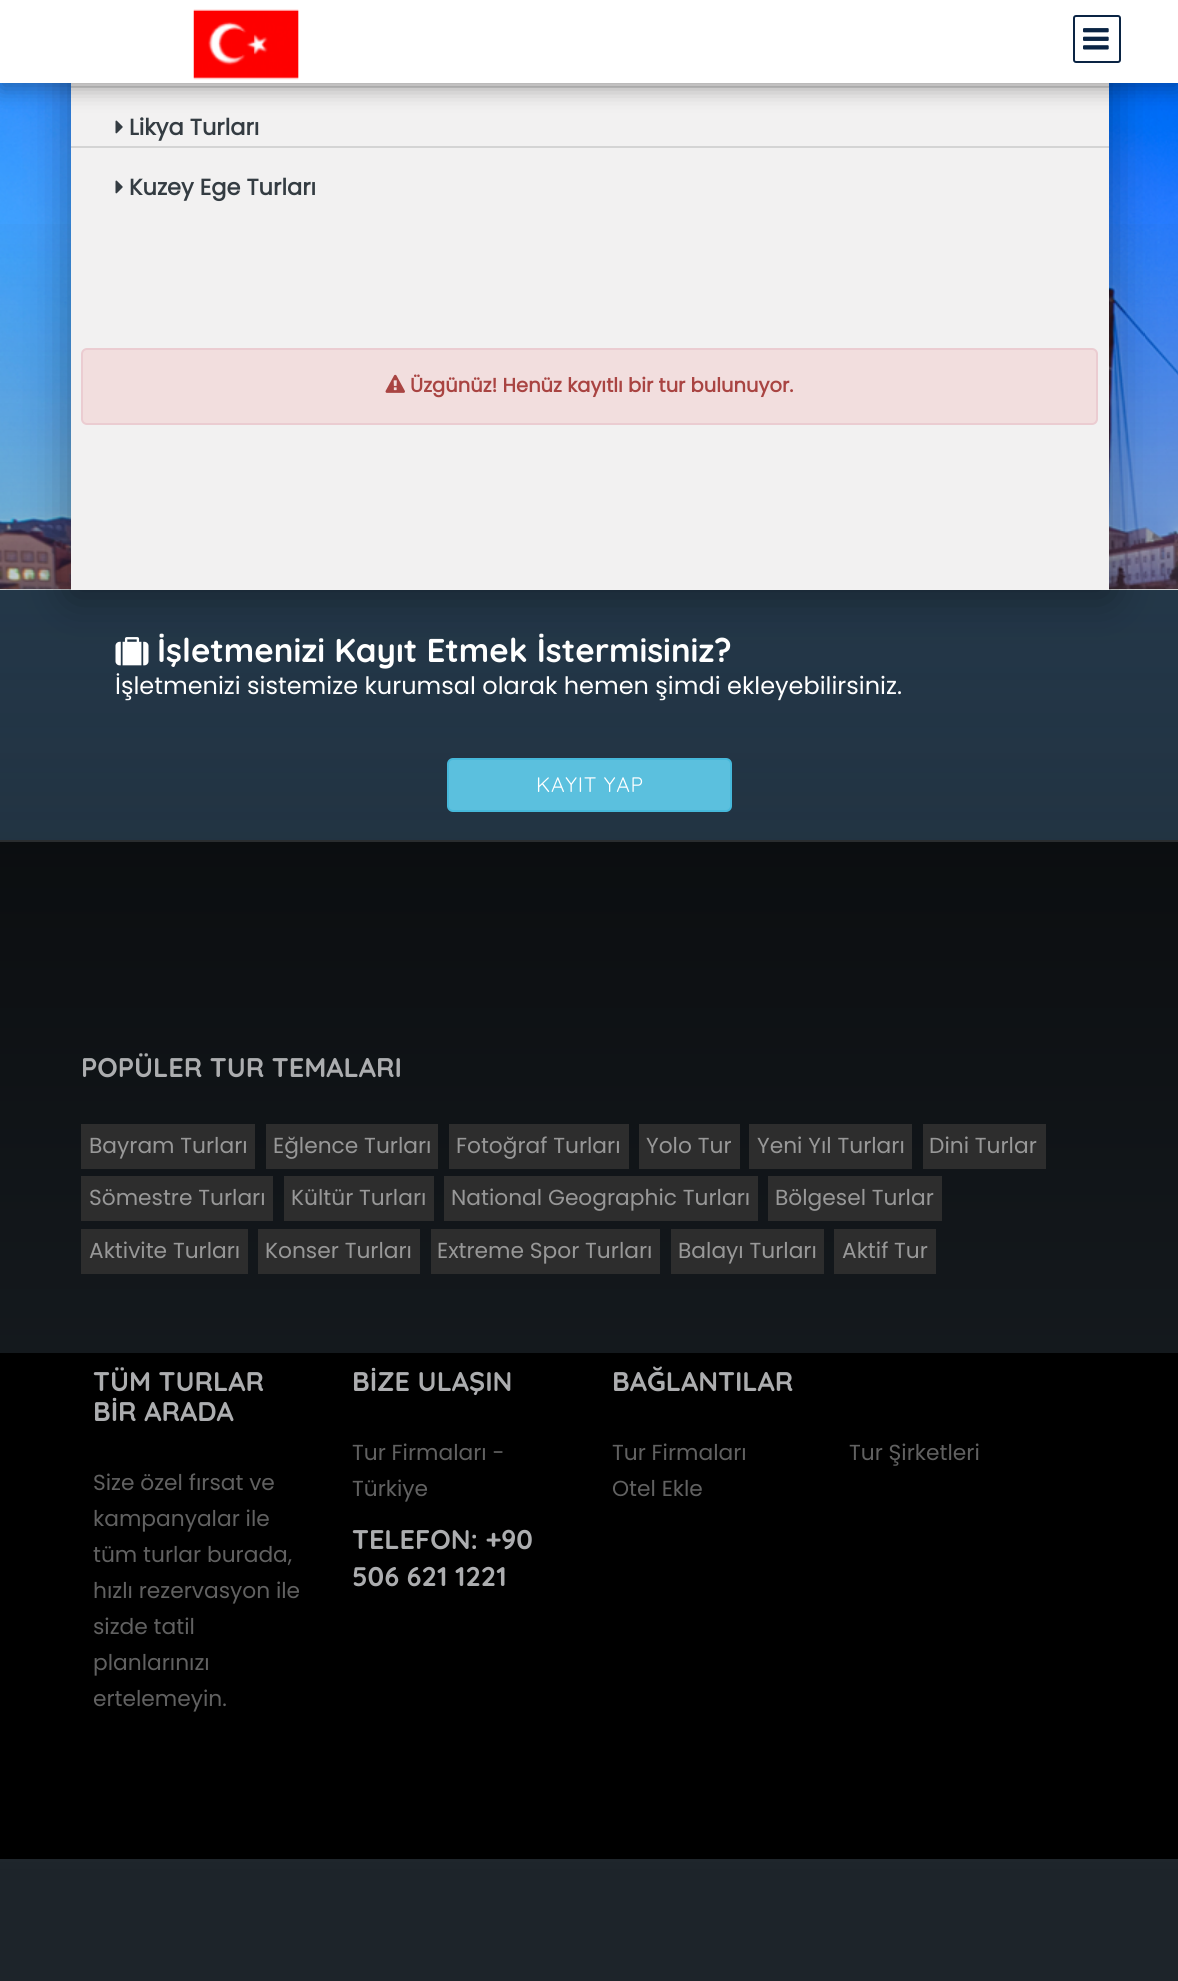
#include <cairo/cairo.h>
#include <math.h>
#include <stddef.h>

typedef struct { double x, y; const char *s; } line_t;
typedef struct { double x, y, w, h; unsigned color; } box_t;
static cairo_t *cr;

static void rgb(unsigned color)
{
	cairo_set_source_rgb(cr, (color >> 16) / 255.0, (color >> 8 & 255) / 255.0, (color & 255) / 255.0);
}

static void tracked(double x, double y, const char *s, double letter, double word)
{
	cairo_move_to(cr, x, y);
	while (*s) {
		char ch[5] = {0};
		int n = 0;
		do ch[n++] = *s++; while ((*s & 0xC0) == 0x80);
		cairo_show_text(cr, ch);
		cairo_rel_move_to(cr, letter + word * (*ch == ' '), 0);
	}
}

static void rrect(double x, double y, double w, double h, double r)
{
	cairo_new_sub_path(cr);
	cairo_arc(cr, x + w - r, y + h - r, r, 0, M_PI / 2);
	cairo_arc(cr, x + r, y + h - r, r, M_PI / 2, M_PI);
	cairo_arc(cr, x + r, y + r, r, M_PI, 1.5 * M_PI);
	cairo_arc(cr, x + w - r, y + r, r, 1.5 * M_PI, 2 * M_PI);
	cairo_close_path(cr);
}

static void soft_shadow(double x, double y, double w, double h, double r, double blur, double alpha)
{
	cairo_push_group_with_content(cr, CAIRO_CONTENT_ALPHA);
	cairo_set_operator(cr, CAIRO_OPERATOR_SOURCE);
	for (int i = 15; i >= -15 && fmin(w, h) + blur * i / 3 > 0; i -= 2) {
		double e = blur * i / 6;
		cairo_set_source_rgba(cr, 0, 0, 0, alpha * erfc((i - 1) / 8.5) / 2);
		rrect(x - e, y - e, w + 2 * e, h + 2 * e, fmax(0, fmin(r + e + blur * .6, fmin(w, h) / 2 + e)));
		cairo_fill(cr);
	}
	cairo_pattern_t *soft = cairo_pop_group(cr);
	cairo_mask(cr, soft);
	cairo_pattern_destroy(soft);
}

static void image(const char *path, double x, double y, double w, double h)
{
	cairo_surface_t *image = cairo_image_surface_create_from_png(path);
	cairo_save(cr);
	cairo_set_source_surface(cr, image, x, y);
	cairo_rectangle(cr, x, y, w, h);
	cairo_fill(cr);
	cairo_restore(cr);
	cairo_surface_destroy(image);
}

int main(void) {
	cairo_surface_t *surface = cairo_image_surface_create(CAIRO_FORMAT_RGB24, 1178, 1981);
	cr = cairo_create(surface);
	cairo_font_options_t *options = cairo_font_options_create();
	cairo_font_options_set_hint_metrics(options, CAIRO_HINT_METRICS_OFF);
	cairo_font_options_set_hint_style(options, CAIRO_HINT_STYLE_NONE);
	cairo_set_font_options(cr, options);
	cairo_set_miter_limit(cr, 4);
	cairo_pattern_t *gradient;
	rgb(0xffffff);
	cairo_paint(cr);
	image("img/3.png", 0, 83, 1178, 506);
	rgb(0x253d52);
	cairo_rectangle(cr, 0, 590, 1178, 250);
	cairo_fill(cr);
	image("img/6.png", 6, 589, 65, 1);
	rgb(0x000000);
	cairo_rectangle(cr, 0, 842, 1178, 511);
	cairo_fill(cr);
	rgb(0x333333);
	cairo_rectangle(cr, 0, 840, 1178, 2);
	cairo_fill(cr);
	gradient = cairo_pattern_create_linear(590, 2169, 590, 188);
	cairo_pattern_add_color_stop_rgba(gradient, 0.15, 0.114, 0.141, 0.165, 1);
	cairo_pattern_add_color_stop_rgba(gradient, 1, 0.114, 0.141, 0.165, 0);
	cairo_set_source(cr, gradient);
	cairo_pattern_destroy(gradient);
	cairo_rectangle(cr, 0, 224, 1178, 1757);
	cairo_fill(cr);
	rgb(0x000000);
	soft_shadow(71, -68, 1038, 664, 0, 22.5, 0.36);
	rgb(0xf2f1f1);
	cairo_rectangle(cr, 71, 83, 1038, 507);
	cairo_fill(cr);
	rgb(0xd4d4d4);
	cairo_rectangle(cr, 71, 86, 1038, 2);
	cairo_fill(cr);
	image("img/4.png", 115, 120, 8, 14);
	rgb(0x000000);
	soft_shadow(0, 6, 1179, 83, 0, 11, 0.32);
	rgb(0xffffff);
	cairo_rectangle(cr, 0, 0, 1178, 83);
	cairo_fill(cr);
	image("img/1.png", 193, 9, 106, 71);
	rrect(1074, 16, 46, 46, 2);
	rgb(0x0a2444);
	cairo_stroke(cr);
	image("img/2.png", 1083, 28, 26, 22);
	rgb(0xd4d4d4);
	cairo_rectangle(cr, 71, 146, 1038, 2);
	cairo_fill(cr);
	image("img/4.png", 115, 180, 8, 14);
	rgb(0xf2dede);
	rrect(82, 349, 1015, 75, 5);
	cairo_fill_preserve(cr);
	rgb(0xebccd1);
	cairo_stroke(cr);
	image("img/5.png", 385, 374, 20, 19);
	image("img/7.png", 115, 637, 34, 29);
	rgb(0x5bc0de);
	rrect(448, 759, 283, 52, 5);
	cairo_fill_preserve(cr);
	rgb(0x46b8da);
	cairo_stroke(cr);
	{
		static const box_t items[] = {
			{81, 1124, 174, 45, 0x2d2d2d},
			{266, 1124, 172, 45, 0x2d2d2d},
			{449, 1124, 180, 45, 0x2d2d2d},
			{639, 1124, 101, 45, 0x2d2d2d},
			{749, 1124, 163, 45, 0x2d2d2d},
			{923, 1124, 123, 45, 0x2d2d2d},
			{81, 1176, 192, 45, 0x2d2d2d},
			{284, 1176, 150, 45, 0x2d2d2d},
			{444, 1176, 314, 45, 0x2d2d2d},
			{768, 1176, 174, 45, 0x2d2d2d},
			{81, 1229, 167, 45, 0x2d2d2d},
			{258, 1229, 162, 45, 0x2d2d2d},
			{431, 1229, 229, 45, 0x2d2d2d},
			{671, 1229, 153, 45, 0x2d2d2d},
			{834, 1229, 102, 45, 0x2d2d2d},
			{0, 1353, 1178, 506, 0x000000},
		};
		for (size_t i = 0; i < sizeof items / sizeof *items; i++) {
			rgb(items[i].color);
			cairo_rectangle(cr, items[i].x, items[i].y, items[i].w, items[i].h);
			cairo_fill(cr);
		}
	}
	cairo_select_font_face(cr, "Poppins", CAIRO_FONT_SLANT_NORMAL, CAIRO_FONT_WEIGHT_BOLD);
	cairo_set_font_size(cr, 22.5);
	rgb(0x343c42);
	cairo_move_to(cr, 129, 135);
	cairo_show_text(cr, "Likya Turları");
	cairo_move_to(cr, 129, 195);
	cairo_show_text(cr, "Kuzey Ege Turları");
	cairo_set_font_size(cr, 19.5);
	rgb(0xa94442);
	cairo_move_to(cr, 410, 392);
	cairo_show_text(cr, "Üzgünüz! Henüz kayıtlı bir tur bulunuyor.");
	cairo_select_font_face(cr, "Quicksand", CAIRO_FONT_SLANT_NORMAL, CAIRO_FONT_WEIGHT_BOLD);
	cairo_set_font_size(cr, 33);
	rgb(0xffffff);
	cairo_move_to(cr, 157, 662);
	cairo_show_text(cr, "İşletmenizi Kayıt Etmek İstermisiniz?");
	cairo_select_font_face(cr, "Poppins", CAIRO_FONT_SLANT_NORMAL, CAIRO_FONT_WEIGHT_NORMAL);
	cairo_set_font_size(cr, 24);
	cairo_move_to(cr, 115, 694);
	cairo_show_text(cr, "İşletmenizi sistemize kurumsal olarak hemen şimdi ekleyebilirsiniz.");
	cairo_select_font_face(cr, "Quicksand", CAIRO_FONT_SLANT_NORMAL, CAIRO_FONT_WEIGHT_NORMAL);
	cairo_set_font_size(cr, 21);
	tracked(536, 792, "KAYIT YAP", 0.75, 0);
	cairo_select_font_face(cr, "Quicksand", CAIRO_FONT_SLANT_NORMAL, CAIRO_FONT_WEIGHT_BOLD);
	cairo_set_font_size(cr, 27);
	rgb(0xacadaf);
	cairo_move_to(cr, 81, 1077);
	cairo_show_text(cr, "POPÜLER TUR TEMALARI");
	cairo_select_font_face(cr, "Poppins", CAIRO_FONT_SLANT_NORMAL, CAIRO_FONT_WEIGHT_NORMAL);
	cairo_set_font_size(cr, 21.75);
	rgb(0x989898);
	{
		static const line_t items[] = {
			{89, 1153, "Bayram Turları"},
			{273, 1153, "Eğlence Turları"},
			{456, 1153, "Fotoğraf Turları"},
			{646, 1153, "Yolo Tur"},
			{757, 1153, "Yeni Yıl Turları"},
			{929, 1153, "Dini Turlar"},
			{89, 1205, "Sömestre Turları"},
			{291, 1205, "Kültür Turları"},
			{451, 1205, "National Geographic Turları"},
			{775, 1205, "Bölgesel Turlar"},
			{89, 1258, "Aktivite Turları"},
			{265, 1258, "Konser Turları"},
			{437, 1258, "Extreme Spor Turları"},
			{678, 1258, "Balayı Turları"},
			{842, 1258, "Aktif Tur"},
		};
		for (size_t i = 0; i < sizeof items / sizeof *items; i++) {
			cairo_move_to(cr, items[i].x, items[i].y);
			cairo_show_text(cr, items[i].s);
		}
	}
	cairo_select_font_face(cr, "Quicksand", CAIRO_FONT_SLANT_NORMAL, CAIRO_FONT_WEIGHT_BOLD);
	cairo_set_font_size(cr, 27);
	rgb(0xacadaf);
	cairo_move_to(cr, 93, 1391);
	cairo_show_text(cr, "TÜM TURLAR");
	cairo_move_to(cr, 93, 1421);
	cairo_show_text(cr, "BİR ARADA");
	cairo_select_font_face(cr, "Poppins", CAIRO_FONT_SLANT_NORMAL, CAIRO_FONT_WEIGHT_NORMAL);
	cairo_set_font_size(cr, 21.75);
	rgb(0x616161);
	{
		static const line_t items[] = {
			{93, 1490, "Size özel fırsat ve"},
			{93, 1526, "kampanyalar ile"},
			{93, 1562, "tüm turlar burada,"},
			{93, 1598, "hızlı rezervasyon ile"},
			{93, 1634, "sizde tatil"},
			{93, 1670, "planlarınızı"},
			{93, 1706, "ertelemeyin."},
		};
		for (size_t i = 0; i < sizeof items / sizeof *items; i++) {
			cairo_move_to(cr, items[i].x, items[i].y);
			cairo_show_text(cr, items[i].s);
		}
	}
	cairo_select_font_face(cr, "Quicksand", CAIRO_FONT_SLANT_NORMAL, CAIRO_FONT_WEIGHT_BOLD);
	cairo_set_font_size(cr, 27);
	rgb(0xacadaf);
	cairo_move_to(cr, 352, 1391);
	cairo_show_text(cr, "BİZE ULAŞIN");
	cairo_select_font_face(cr, "Poppins", CAIRO_FONT_SLANT_NORMAL, CAIRO_FONT_WEIGHT_NORMAL);
	cairo_set_font_size(cr, 21.75);
	rgb(0x616161);
	cairo_move_to(cr, 352, 1460);
	cairo_show_text(cr, "Tur Firmaları -");
	cairo_move_to(cr, 352, 1496);
	cairo_show_text(cr, "Türkiye");
	cairo_select_font_face(cr, "Quicksand", CAIRO_FONT_SLANT_NORMAL, CAIRO_FONT_WEIGHT_BOLD);
	cairo_set_font_size(cr, 27);
	rgb(0xacadaf);
	{
		static const line_t items[] = {
			{352, 1549, "TELEFON: +90"},
			{352, 1586, "506 621 1221"},
			{612, 1391, "BAĞLANTILAR"},
		};
		for (size_t i = 0; i < sizeof items / sizeof *items; i++) {
			cairo_move_to(cr, items[i].x, items[i].y);
			cairo_show_text(cr, items[i].s);
		}
	}
	cairo_select_font_face(cr, "Poppins", CAIRO_FONT_SLANT_NORMAL, CAIRO_FONT_WEIGHT_NORMAL);
	cairo_set_font_size(cr, 21.75);
	rgb(0x616161);
	{
		static const line_t items[] = {
			{612, 1460, "Tur Firmaları"},
			{849, 1460, "Tur Şirketleri"},
			{612, 1496, "Otel Ekle"},
		};
		for (size_t i = 0; i < sizeof items / sizeof *items; i++) {
			cairo_move_to(cr, items[i].x, items[i].y);
			cairo_show_text(cr, items[i].s);
		}
	}
	cairo_surface_write_to_png(surface, "page.png");
	cairo_font_options_destroy(options);
	cairo_destroy(cr);
	cairo_surface_destroy(surface);
	return 0;
}
